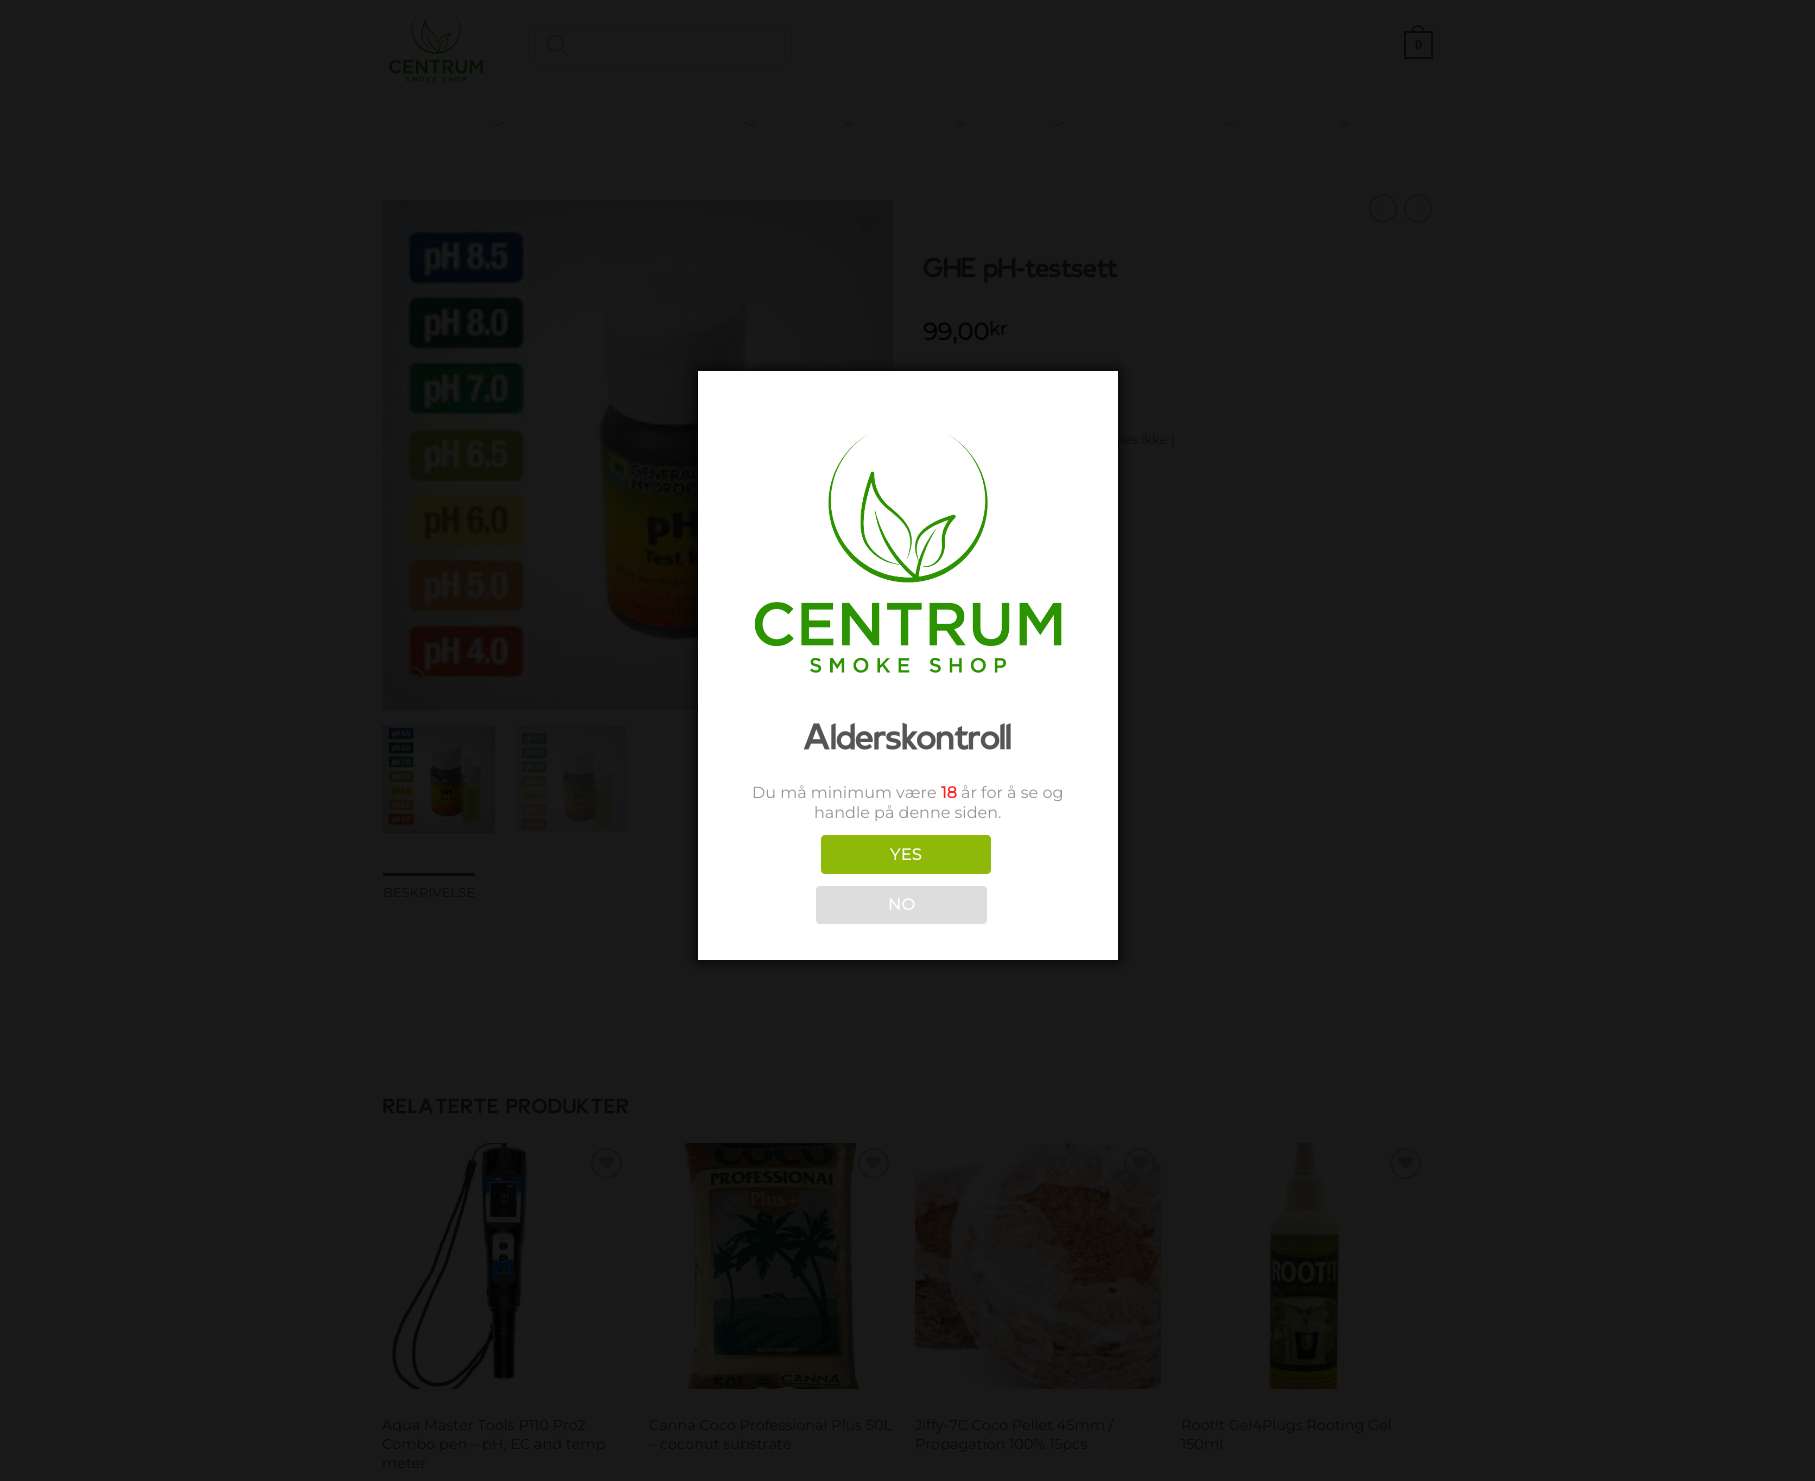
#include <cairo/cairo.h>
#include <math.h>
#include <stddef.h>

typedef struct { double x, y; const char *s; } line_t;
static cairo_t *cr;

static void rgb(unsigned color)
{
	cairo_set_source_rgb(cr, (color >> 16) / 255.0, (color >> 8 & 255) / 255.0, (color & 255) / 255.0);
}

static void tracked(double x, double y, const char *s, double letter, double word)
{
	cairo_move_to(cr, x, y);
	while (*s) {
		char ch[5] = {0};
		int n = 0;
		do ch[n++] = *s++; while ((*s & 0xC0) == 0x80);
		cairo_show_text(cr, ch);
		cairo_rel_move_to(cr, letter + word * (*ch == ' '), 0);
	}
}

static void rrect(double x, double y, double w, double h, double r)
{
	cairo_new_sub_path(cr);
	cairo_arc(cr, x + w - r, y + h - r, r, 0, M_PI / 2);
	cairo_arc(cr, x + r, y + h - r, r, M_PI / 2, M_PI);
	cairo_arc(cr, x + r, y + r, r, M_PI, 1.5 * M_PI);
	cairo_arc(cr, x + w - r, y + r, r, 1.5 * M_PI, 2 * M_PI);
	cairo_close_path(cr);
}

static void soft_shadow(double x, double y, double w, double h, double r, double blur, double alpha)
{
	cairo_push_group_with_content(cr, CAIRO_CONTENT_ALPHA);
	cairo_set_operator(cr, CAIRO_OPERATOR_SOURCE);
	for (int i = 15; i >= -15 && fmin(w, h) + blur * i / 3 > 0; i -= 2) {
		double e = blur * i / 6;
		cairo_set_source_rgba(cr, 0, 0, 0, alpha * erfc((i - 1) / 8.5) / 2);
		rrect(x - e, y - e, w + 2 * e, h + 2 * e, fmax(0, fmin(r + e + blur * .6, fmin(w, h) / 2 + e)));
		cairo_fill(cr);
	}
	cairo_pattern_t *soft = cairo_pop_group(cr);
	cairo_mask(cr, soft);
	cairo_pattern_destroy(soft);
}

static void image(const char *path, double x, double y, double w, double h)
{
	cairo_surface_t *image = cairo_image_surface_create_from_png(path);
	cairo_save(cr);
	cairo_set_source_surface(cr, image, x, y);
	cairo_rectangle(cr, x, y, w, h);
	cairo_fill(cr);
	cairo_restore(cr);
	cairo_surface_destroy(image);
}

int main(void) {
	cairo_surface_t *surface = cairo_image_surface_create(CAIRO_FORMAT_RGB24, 1815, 1481);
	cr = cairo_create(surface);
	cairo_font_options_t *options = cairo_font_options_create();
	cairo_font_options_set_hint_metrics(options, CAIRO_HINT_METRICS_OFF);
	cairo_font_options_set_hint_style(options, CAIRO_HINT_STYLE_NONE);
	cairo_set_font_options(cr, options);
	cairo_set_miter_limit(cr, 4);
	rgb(0x191919);
	cairo_paint(cr);
	image("img/1.png", 389, 8, 94, 74);
	rrect(535.5, 25.5, 249, 39, 2.5);
	rgb(0x161616);
	cairo_set_line_width(cr, 1);
	cairo_stroke(cr);
	image("img/2.png", 547, 35, 20, 20);
	cairo_rectangle(cr, 1405, 32, 27, 26);
	rgb(0x070a0d);
	cairo_set_line_width(cr, 2);
	cairo_stroke(cr);
	cairo_set_fill_rule(cr, CAIRO_FILL_RULE_EVEN_ODD);
	cairo_new_path(cr);
	cairo_move_to(cr, 1418, 25);
	cairo_curve_to(cr, 1422.5, 25, 1425, 29, 1425, 33);
	cairo_line_to(cr, 1411, 33);
	cairo_curve_to(cr, 1411, 29, 1413.5, 25, 1418, 25);
	cairo_close_path(cr);
	cairo_move_to(cr, 1418, 27);
	cairo_curve_to(cr, 1421.5, 27, 1423, 30, 1423, 33);
	cairo_line_to(cr, 1413, 33);
	cairo_curve_to(cr, 1413, 30, 1414.5, 27, 1418, 27);
	cairo_close_path(cr);
	cairo_fill(cr);
	image("img/3.png", 493, 121, 10, 6);
	image("img/3.png", 745, 121, 10, 6);
	image("img/3.png", 844, 121, 10, 6);
	image("img/3.png", 955, 121, 10, 6);
	image("img/3.png", 1053, 121, 10, 6);
	image("img/3.png", 1224, 121, 10, 6);
	image("img/3.png", 1339, 121, 10, 6);
	image("img/4.png", 383, 200, 510, 510);
	image("img/5.png", 857, 216, 19, 16);
	cairo_arc(cr, 408.5, 685.5, 18.5, 0, 2 * M_PI);
	rgb(0x131313);
	cairo_stroke(cr);
	image("img/6.png", 399, 674, 19, 19);
	cairo_rectangle(cr, 382.5, 725.5, 112, 107);
	rgb(0x141414);
	cairo_set_line_width(cr, 1);
	cairo_stroke(cr);
	image("img/7.png", 383, 726, 111, 106);
	image("img/8.png", 516, 726, 111, 106);
	cairo_new_path(cr);
	cairo_move_to(cr, 923, 392.5);
	cairo_line_to(cr, 1253, 392.5);
	rgb(0x161616);
	cairo_set_dash(cr, (double[]){1, 1}, 2, 0);
	cairo_stroke(cr);
	cairo_new_path(cr);
	cairo_move_to(cr, 923, 424.5);
	cairo_line_to(cr, 1253, 424.5);
	cairo_stroke(cr);
	rrect(1370, 195, 26, 27, 13);
	rgb(0x131313);
	cairo_set_line_width(cr, 2);
	cairo_set_dash(cr, NULL, 0, 0);
	cairo_stroke(cr);
	image("img/9.png", 1381, 204, 5, 8);
	rrect(1405, 195, 26, 27, 13);
	cairo_stroke(cr);
	image("img/10.png", 1416, 204, 4, 8);
	rgb(0x070a0d);
	cairo_rectangle(cr, 383, 873, 92, 3);
	cairo_fill(cr);
	image("img/11.png", 390, 1143, 144, 246);
	cairo_arc(cr, 606.5, 1163.5, 14.5, 0, 2 * M_PI);
	rgb(0x131313);
	cairo_stroke(cr);
	image("img/12.png", 599, 1156, 15, 13);
	image("img/13.png", 681, 1143, 183, 246);
	cairo_arc(cr, 873.5, 1163.5, 14.5, 0, 2 * M_PI);
	cairo_stroke(cr);
	image("img/12.png", 866, 1156, 15, 13);
	image("img/14.png", 915, 1143, 246, 246);
	cairo_arc(cr, 1139.5, 1163.5, 14.5, 0, 2 * M_PI);
	cairo_stroke(cr);
	image("img/15.png", 1132, 1156, 15, 13);
	image("img/16.png", 1261, 1143, 81, 246);
	cairo_arc(cr, 1405.5, 1163.5, 14.5, 0, 2 * M_PI);
	cairo_stroke(cr);
	image("img/12.png", 1398, 1156, 15, 13);
	rgb(0x000000);
	soft_shadow(698, 371, 420, 589, 0, 7.5, 1);
	cairo_select_font_face(cr, "Liberation Sans", CAIRO_FONT_SLANT_NORMAL, CAIRO_FONT_WEIGHT_BOLD);
	cairo_set_font_size(cr, 12.75);
	rgb(0x080808);
	tracked(1415, 49, "0", 0.25, 0);
	cairo_select_font_face(cr, "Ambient", CAIRO_FONT_SLANT_NORMAL, CAIRO_FONT_WEIGHT_BOLD);
	cairo_set_font_size(cr, 27.25);
	cairo_move_to(cr, 923, 277);
	cairo_show_text(cr, "GHE pH-testsett");
	cairo_select_font_face(cr, "Montserrat", CAIRO_FONT_SLANT_NORMAL, CAIRO_FONT_WEIGHT_BOLD);
	cairo_set_font_size(cr, 24);
	rgb(0x020202);
	cairo_move_to(cr, 923, 340);
	cairo_show_text(cr, "99,00");
	cairo_set_font_size(cr, 18);
	cairo_move_to(cr, 989, 335);
	cairo_show_text(cr, "kr");
	cairo_select_font_face(cr, "Montserrat Thin", CAIRO_FONT_SLANT_NORMAL, CAIRO_FONT_WEIGHT_NORMAL);
	cairo_set_font_size(cr, 12.75);
	rgb(0x080808);
	cairo_move_to(cr, 1115, 444);
	cairo_show_text(cr, "des ikke )");
	tracked(383, 897, "BESKRIVELSE", 0.25, 0);
	cairo_select_font_face(cr, "Ambient", CAIRO_FONT_SLANT_NORMAL, CAIRO_FONT_WEIGHT_BOLD);
	cairo_set_font_size(cr, 20);
	tracked(383, 1113, "RELATERTE PRODUKTER", 1, 0);
	cairo_select_font_face(cr, "Montserrat Thin", CAIRO_FONT_SLANT_NORMAL, CAIRO_FONT_WEIGHT_NORMAL);
	cairo_set_font_size(cr, 14.4);
	{
		static const line_t items[] = {
			{382, 1430, "Aqua Master Tools P110 Pro2"},
			{382, 1449, "Combo pen – pH, EC and temp"},
			{382, 1468, "meter"},
			{649, 1430, "Canna Coco Professional Plus 50L"},
			{649, 1449, "– coconut substrate"},
			{915, 1430, "Jiffy-7C Coco Pellet 45mm /"},
			{915, 1449, "Propagation 100% 15pcs"},
			{1181, 1430, "Root!t Gel4Plugs Rooting Gel"},
			{1181, 1449, "150ml"},
		};
		for (size_t i = 0; i < sizeof items / sizeof *items; i++) {
			cairo_move_to(cr, items[i].x, items[i].y);
			cairo_show_text(cr, items[i].s);
		}
	}
	rgb(0xffffff);
	cairo_rectangle(cr, 698, 371, 420, 589);
	cairo_fill(cr);
	image("img/17.png", 754, 434, 308, 239);
	cairo_select_font_face(cr, "Ambient", CAIRO_FONT_SLANT_NORMAL, CAIRO_FONT_WEIGHT_BOLD);
	cairo_set_font_size(cr, 36);
	rgb(0x555555);
	cairo_move_to(cr, 803, 749);
	cairo_show_text(cr, "Alderskontroll");
	cairo_select_font_face(cr, "Montserrat Thin", CAIRO_FONT_SLANT_NORMAL, CAIRO_FONT_WEIGHT_NORMAL);
	cairo_set_font_size(cr, 16);
	rgb(0x959595);
	cairo_move_to(cr, 752, 798);
	cairo_show_text(cr, "Du må minimum være");
	cairo_select_font_face(cr, "Montserrat", CAIRO_FONT_SLANT_NORMAL, CAIRO_FONT_WEIGHT_BOLD);
	rgb(0xff1f1f);
	cairo_move_to(cr, 941, 798);
	cairo_show_text(cr, "18");
	cairo_select_font_face(cr, "Montserrat Thin", CAIRO_FONT_SLANT_NORMAL, CAIRO_FONT_WEIGHT_NORMAL);
	rgb(0x959595);
	cairo_move_to(cr, 961, 798);
	cairo_show_text(cr, "år for å se og");
	cairo_move_to(cr, 814, 818);
	cairo_show_text(cr, "handle på denne siden.");
	rgb(0x8eb908);
	rrect(821, 835, 170, 39, 4);
	cairo_fill(cr);
	cairo_select_font_face(cr, "Montserrat", CAIRO_FONT_SLANT_NORMAL, CAIRO_FONT_WEIGHT_BOLD);
	rgb(0xffffff);
	tracked(890, 860, "YES", 0.5, 0);
	rgb(0xdddddd);
	rrect(816, 886, 171, 38, 4);
	cairo_fill(cr);
	rgb(0xffffff);
	tracked(888, 910, "NO", 0.5, 0);
	cairo_surface_write_to_png(surface, "page.png");
	cairo_font_options_destroy(options);
	cairo_destroy(cr);
	cairo_surface_destroy(surface);
	return 0;
}
